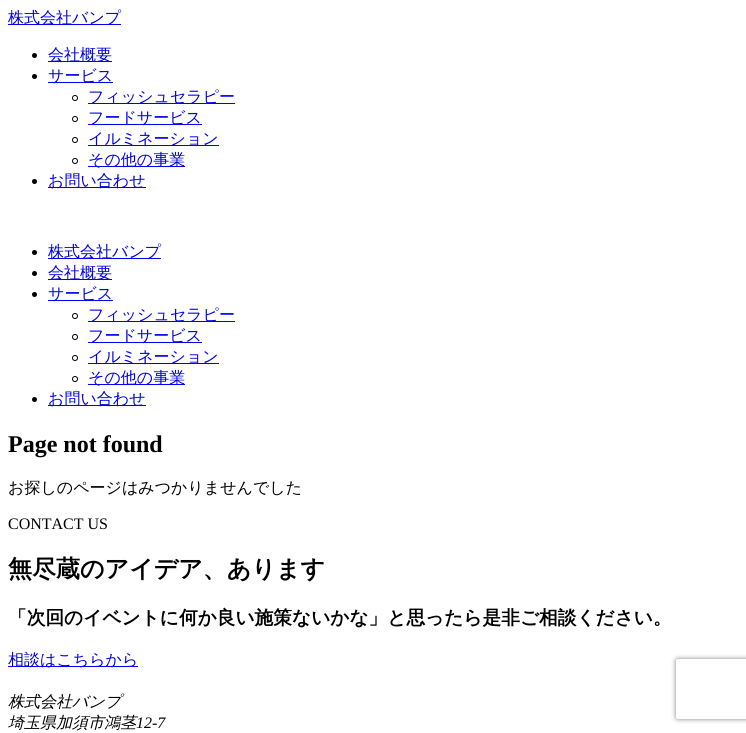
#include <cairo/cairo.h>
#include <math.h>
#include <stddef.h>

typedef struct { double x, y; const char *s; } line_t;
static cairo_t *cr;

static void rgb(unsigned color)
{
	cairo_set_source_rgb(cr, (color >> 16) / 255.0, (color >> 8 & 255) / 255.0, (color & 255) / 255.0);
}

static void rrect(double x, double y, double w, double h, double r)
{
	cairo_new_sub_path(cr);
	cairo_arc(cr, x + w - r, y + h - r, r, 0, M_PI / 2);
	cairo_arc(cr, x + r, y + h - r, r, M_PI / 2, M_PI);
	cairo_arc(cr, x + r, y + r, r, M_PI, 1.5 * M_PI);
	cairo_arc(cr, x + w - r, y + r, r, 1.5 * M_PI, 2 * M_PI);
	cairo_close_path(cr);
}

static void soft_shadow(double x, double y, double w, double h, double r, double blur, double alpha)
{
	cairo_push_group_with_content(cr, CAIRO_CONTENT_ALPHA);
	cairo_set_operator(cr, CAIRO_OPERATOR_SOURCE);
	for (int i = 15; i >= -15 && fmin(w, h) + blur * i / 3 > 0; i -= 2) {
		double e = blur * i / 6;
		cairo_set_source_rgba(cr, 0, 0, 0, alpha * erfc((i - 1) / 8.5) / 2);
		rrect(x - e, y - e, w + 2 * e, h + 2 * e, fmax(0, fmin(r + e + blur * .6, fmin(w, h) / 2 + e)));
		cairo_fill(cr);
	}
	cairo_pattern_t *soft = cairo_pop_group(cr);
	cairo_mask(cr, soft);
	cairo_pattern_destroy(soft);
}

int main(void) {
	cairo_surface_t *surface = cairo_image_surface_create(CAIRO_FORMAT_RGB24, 746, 733);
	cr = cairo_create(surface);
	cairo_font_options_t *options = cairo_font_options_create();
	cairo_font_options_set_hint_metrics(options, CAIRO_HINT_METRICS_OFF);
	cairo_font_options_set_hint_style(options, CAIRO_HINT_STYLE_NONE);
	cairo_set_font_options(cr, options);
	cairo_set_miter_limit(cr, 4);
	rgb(0xffffff);
	cairo_paint(cr);
	rgb(0x0000ee);
	cairo_rectangle(cr, 8, 24, 113, 1);
	cairo_fill(cr);
	rgb(0x000000);
	cairo_arc(cr, 34.5, 55.5, 2.5, 0, 2 * M_PI);
	cairo_fill(cr);
	rgb(0x0000ee);
	cairo_rectangle(cr, 48, 61, 64, 1);
	cairo_fill(cr);
	rgb(0x000000);
	cairo_arc(cr, 34.5, 76.5, 2.5, 0, 2 * M_PI);
	cairo_fill(cr);
	rgb(0x0000ee);
	cairo_rectangle(cr, 48, 82, 65, 1);
	cairo_fill(cr);
	cairo_arc(cr, 75, 98, 2.5, 0, 2 * M_PI);
	rgb(0x000000);
	cairo_set_line_width(cr, 1);
	cairo_stroke(cr);
	rgb(0x0000ee);
	cairo_rectangle(cr, 88, 103, 147, 1);
	cairo_fill(cr);
	cairo_arc(cr, 75, 119, 2.5, 0, 2 * M_PI);
	rgb(0x000000);
	cairo_stroke(cr);
	rgb(0x0000ee);
	cairo_rectangle(cr, 88, 124, 114, 1);
	cairo_fill(cr);
	cairo_arc(cr, 75, 140, 2.5, 0, 2 * M_PI);
	rgb(0x000000);
	cairo_stroke(cr);
	rgb(0x0000ee);
	cairo_rectangle(cr, 88, 145, 131, 1);
	cairo_fill(cr);
	cairo_arc(cr, 75, 161, 2.5, 0, 2 * M_PI);
	rgb(0x000000);
	cairo_stroke(cr);
	rgb(0x0000ee);
	cairo_rectangle(cr, 88, 166, 97, 1);
	cairo_fill(cr);
	rgb(0x000000);
	cairo_arc(cr, 34.5, 181.5, 2.5, 0, 2 * M_PI);
	cairo_fill(cr);
	rgb(0x0000ee);
	cairo_rectangle(cr, 48, 187, 98, 1);
	cairo_fill(cr);
	rgb(0x000000);
	cairo_arc(cr, 34.5, 252.5, 2.5, 0, 2 * M_PI);
	cairo_fill(cr);
	rgb(0x0000ee);
	cairo_rectangle(cr, 48, 258, 113, 1);
	cairo_fill(cr);
	rgb(0x000000);
	cairo_arc(cr, 34.5, 273.5, 2.5, 0, 2 * M_PI);
	cairo_fill(cr);
	rgb(0x0000ee);
	cairo_rectangle(cr, 48, 279, 64, 1);
	cairo_fill(cr);
	rgb(0x000000);
	cairo_arc(cr, 34.5, 294.5, 2.5, 0, 2 * M_PI);
	cairo_fill(cr);
	rgb(0x0000ee);
	cairo_rectangle(cr, 48, 300, 65, 1);
	cairo_fill(cr);
	cairo_arc(cr, 75, 316, 2.5, 0, 2 * M_PI);
	rgb(0x000000);
	cairo_stroke(cr);
	rgb(0x0000ee);
	cairo_rectangle(cr, 88, 321, 147, 1);
	cairo_fill(cr);
	cairo_arc(cr, 75, 337, 2.5, 0, 2 * M_PI);
	rgb(0x000000);
	cairo_stroke(cr);
	rgb(0x0000ee);
	cairo_rectangle(cr, 88, 342, 114, 1);
	cairo_fill(cr);
	cairo_arc(cr, 75, 358, 2.5, 0, 2 * M_PI);
	rgb(0x000000);
	cairo_stroke(cr);
	rgb(0x0000ee);
	cairo_rectangle(cr, 88, 363, 131, 1);
	cairo_fill(cr);
	cairo_arc(cr, 75, 379, 2.5, 0, 2 * M_PI);
	rgb(0x000000);
	cairo_stroke(cr);
	rgb(0x0000ee);
	cairo_rectangle(cr, 88, 384, 97, 1);
	cairo_fill(cr);
	rgb(0x000000);
	cairo_arc(cr, 34.5, 399.5, 2.5, 0, 2 * M_PI);
	cairo_fill(cr);
	rgb(0x0000ee);
	cairo_rectangle(cr, 48, 405, 98, 1);
	cairo_fill(cr);
	cairo_rectangle(cr, 8, 666, 130, 1);
	cairo_fill(cr);
	cairo_save(cr);
	cairo_set_fill_rule(cr, CAIRO_FILL_RULE_EVEN_ODD);
	cairo_new_path(cr);
	cairo_move_to(cr, 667, 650);
	cairo_line_to(cr, 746, 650);
	cairo_line_to(cr, 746, 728);
	cairo_line_to(cr, 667, 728);
	cairo_close_path(cr);
	cairo_move_to(cr, 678, 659);
	cairo_line_to(cr, 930, 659);
	cairo_curve_to(cr, 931, 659, 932, 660, 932, 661);
	cairo_line_to(cr, 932, 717);
	cairo_curve_to(cr, 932, 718, 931, 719, 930, 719);
	cairo_line_to(cr, 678, 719);
	cairo_curve_to(cr, 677, 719, 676, 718, 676, 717);
	cairo_line_to(cr, 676, 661);
	cairo_curve_to(cr, 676, 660, 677, 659, 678, 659);
	cairo_close_path(cr);
	cairo_clip(cr);
	rgb(0x808080);
	soft_shadow(676, 659, 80, 60, 2, 2.5, 1);
	cairo_restore(cr);
	cairo_select_font_face(cr, "WenQuanYi Zen Hei Medium", CAIRO_FONT_SLANT_NORMAL, CAIRO_FONT_WEIGHT_NORMAL);
	cairo_set_font_size(cr, 16);
	{
		static const line_t items[] = {
			{8, 23, "株式会社バンプ"},
			{48, 60, "会社概要"},
			{48, 81, "サービス"},
			{88, 102, "フィッシュセラピー"},
			{88, 123, "フードサービス"},
			{88, 144, "イルミネーション"},
			{88, 165, "その他の事業"},
			{48, 186, "お問い合わせ"},
			{48, 257, "株式会社バンプ"},
			{48, 278, "会社概要"},
			{48, 299, "サービス"},
			{88, 320, "フィッシュセラピー"},
			{88, 341, "フードサービス"},
			{88, 362, "イルミネーション"},
			{88, 383, "その他の事業"},
			{48, 404, "お問い合わせ"},
		};
		for (size_t i = 0; i < sizeof items / sizeof *items; i++) {
			cairo_move_to(cr, items[i].x, items[i].y);
			cairo_show_text(cr, items[i].s);
		}
	}
	cairo_select_font_face(cr, "Liberation Serif", CAIRO_FONT_SLANT_NORMAL, CAIRO_FONT_WEIGHT_BOLD);
	cairo_set_font_size(cr, 24);
	rgb(0x000000);
	cairo_move_to(cr, 8, 452);
	cairo_show_text(cr, "Page not found");
	cairo_select_font_face(cr, "WenQuanYi Zen Hei Medium", CAIRO_FONT_SLANT_NORMAL, CAIRO_FONT_WEIGHT_NORMAL);
	cairo_set_font_size(cr, 16);
	cairo_move_to(cr, 8, 493);
	cairo_show_text(cr, "お探しのページはみつかりませんでした");
	cairo_select_font_face(cr, "Liberation Serif", CAIRO_FONT_SLANT_NORMAL, CAIRO_FONT_WEIGHT_NORMAL);
	cairo_move_to(cr, 8, 529);
	cairo_show_text(cr, "CONTACT US");
	cairo_select_font_face(cr, "WenQuanYi Zen Hei", CAIRO_FONT_SLANT_NORMAL, CAIRO_FONT_WEIGHT_BOLD);
	cairo_set_font_size(cr, 24);
	cairo_move_to(cr, 8, 577);
	cairo_show_text(cr, "無尽蔵のアイデア、あります");
	cairo_set_font_size(cr, 18.7);
	cairo_move_to(cr, 8, 624);
	cairo_show_text(cr, "「次回のイベントに何か良い施策ないかな」と思ったら是非ご相談ください。");
	cairo_select_font_face(cr, "WenQuanYi Zen Hei Medium", CAIRO_FONT_SLANT_NORMAL, CAIRO_FONT_WEIGHT_NORMAL);
	cairo_set_font_size(cr, 16);
	rgb(0x0000ee);
	cairo_move_to(cr, 8, 665);
	cairo_show_text(cr, "相談はこちらから");
	cairo_select_font_face(cr, "WenQuanYi Zen Hei Medium", CAIRO_FONT_SLANT_ITALIC, CAIRO_FONT_WEIGHT_NORMAL);
	rgb(0x000000);
	cairo_move_to(cr, 8, 707);
	cairo_show_text(cr, "株式会社バンプ");
	cairo_move_to(cr, 8, 728);
	cairo_show_text(cr, "埼玉県加須市鴻茎");
	cairo_select_font_face(cr, "Liberation Serif", CAIRO_FONT_SLANT_ITALIC, CAIRO_FONT_WEIGHT_NORMAL);
	cairo_move_to(cr, 136, 728);
	cairo_show_text(cr, "12-7");
	cairo_surface_write_to_png(surface, "page.png");
	cairo_font_options_destroy(options);
	cairo_destroy(cr);
	cairo_surface_destroy(surface);
	return 0;
}
